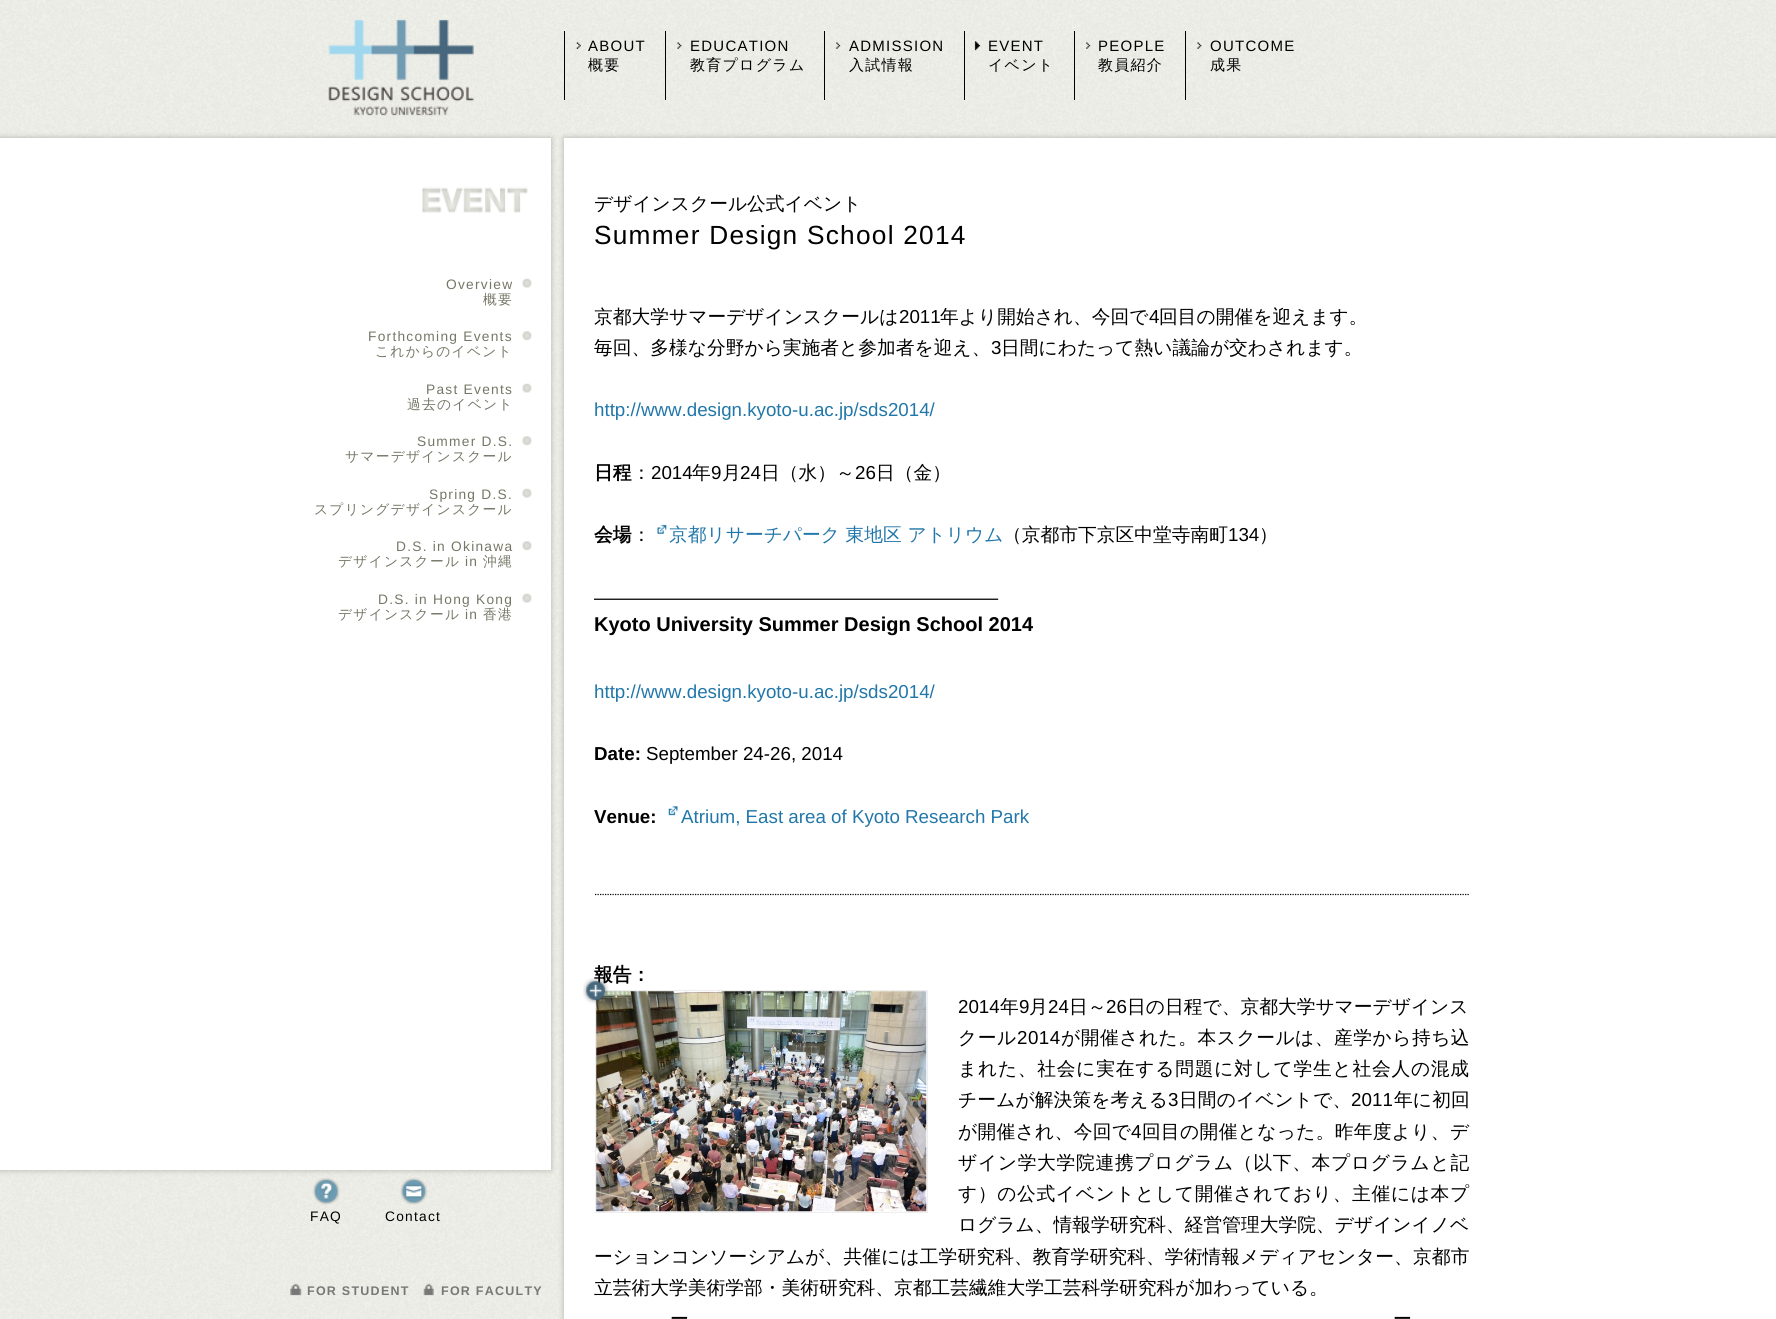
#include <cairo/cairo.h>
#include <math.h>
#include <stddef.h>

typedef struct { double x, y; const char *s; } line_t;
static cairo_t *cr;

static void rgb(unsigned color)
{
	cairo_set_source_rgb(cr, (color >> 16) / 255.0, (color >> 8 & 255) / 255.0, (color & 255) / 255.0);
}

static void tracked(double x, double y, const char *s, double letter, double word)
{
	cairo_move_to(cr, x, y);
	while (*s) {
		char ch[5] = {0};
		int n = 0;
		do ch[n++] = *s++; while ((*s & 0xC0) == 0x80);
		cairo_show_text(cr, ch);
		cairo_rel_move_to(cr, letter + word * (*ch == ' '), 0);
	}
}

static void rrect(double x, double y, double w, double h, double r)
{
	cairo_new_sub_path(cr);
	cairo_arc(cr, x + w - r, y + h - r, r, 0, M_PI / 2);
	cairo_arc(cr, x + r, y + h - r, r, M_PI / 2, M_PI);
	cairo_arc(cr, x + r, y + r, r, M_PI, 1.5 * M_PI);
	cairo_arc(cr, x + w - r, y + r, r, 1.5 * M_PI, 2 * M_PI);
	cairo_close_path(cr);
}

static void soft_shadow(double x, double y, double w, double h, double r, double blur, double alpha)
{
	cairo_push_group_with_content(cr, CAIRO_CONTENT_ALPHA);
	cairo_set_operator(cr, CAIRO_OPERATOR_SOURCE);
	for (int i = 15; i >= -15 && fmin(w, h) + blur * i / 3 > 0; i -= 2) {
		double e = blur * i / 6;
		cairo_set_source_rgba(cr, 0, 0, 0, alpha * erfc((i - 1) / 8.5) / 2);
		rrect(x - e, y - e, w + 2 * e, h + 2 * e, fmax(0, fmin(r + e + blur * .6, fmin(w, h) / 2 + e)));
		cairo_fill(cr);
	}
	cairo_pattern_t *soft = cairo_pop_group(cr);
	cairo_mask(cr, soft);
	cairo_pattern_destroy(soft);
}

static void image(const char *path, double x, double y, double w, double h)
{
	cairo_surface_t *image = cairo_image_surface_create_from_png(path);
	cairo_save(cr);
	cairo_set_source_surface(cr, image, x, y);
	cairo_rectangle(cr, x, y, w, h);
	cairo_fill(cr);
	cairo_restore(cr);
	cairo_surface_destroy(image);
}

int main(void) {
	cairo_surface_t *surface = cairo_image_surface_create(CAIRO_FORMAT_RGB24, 1776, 1319);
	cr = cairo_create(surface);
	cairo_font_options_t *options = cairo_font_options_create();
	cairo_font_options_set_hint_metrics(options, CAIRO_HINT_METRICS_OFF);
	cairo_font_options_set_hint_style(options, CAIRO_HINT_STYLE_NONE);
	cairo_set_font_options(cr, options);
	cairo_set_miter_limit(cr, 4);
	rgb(0xffffff);
	cairo_paint(cr);
	image("img/1.png", 0, 0, 1776, 1170);
	image("img/2.png", 328, 19, 146, 97);
	rgb(0x000000);
	cairo_rectangle(cr, 564, 31, 1, 69);
	cairo_fill(cr);
	image("img/3.png", 576, 42, 5, 7);
	cairo_rectangle(cr, 665, 31, 1, 69);
	cairo_fill(cr);
	image("img/4.png", 677, 42, 5, 7);
	cairo_rectangle(cr, 824, 31, 1, 69);
	cairo_fill(cr);
	image("img/5.png", 836, 42, 5, 7);
	cairo_rectangle(cr, 964, 31, 1, 69);
	cairo_fill(cr);
	image("img/6.png", 974, 41, 7, 10);
	cairo_rectangle(cr, 1074, 31, 1, 69);
	cairo_fill(cr);
	image("img/7.png", 1086, 42, 5, 7);
	cairo_rectangle(cr, 1185, 31, 1, 69);
	cairo_fill(cr);
	image("img/8.png", 1197, 42, 5, 7);
	rgb(0x000000);
	soft_shadow(-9, 138, 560, 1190, 0, 3, 0.25);
	rgb(0xffffff);
	cairo_rectangle(cr, 0, 138, 551, 1032);
	cairo_fill(cr);
	image("img/9.png", 422, 187, 106, 26);
	image("img/10.png", 522, 278, 10, 10);
	image("img/11.png", 522, 331, 10, 10);
	image("img/10.png", 522, 383, 10, 10);
	image("img/11.png", 522, 436, 10, 10);
	image("img/10.png", 522, 488, 10, 10);
	image("img/11.png", 522, 541, 10, 10);
	image("img/10.png", 522, 593, 10, 10);
	image("img/15.png", 0, 1170, 564, 149);
	rgb(0x000000);
	soft_shadow(564, 138, 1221, 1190, 0, 3, 0.25);
	rgb(0xffffff);
	cairo_rectangle(cr, 564, 138, 1212, 1181);
	cairo_fill(cr);
	image("img/12.png", 657, 524, 10, 10);
	image("img/13.png", 668, 806, 10, 10);
	cairo_new_path(cr);
	cairo_move_to(cr, 595, 894.5);
	cairo_line_to(cr, 1470, 894.5);
	rgb(0x000000);
	cairo_set_line_width(cr, 1.2);
	cairo_set_dash(cr, (double[]){1.25, 1.25}, 2, 0);
	cairo_stroke(cr);
	cairo_rectangle(cr, 595.5, 990.5, 332, 222);
	rgb(0xeeeeee);
	cairo_set_line_width(cr, 1);
	cairo_set_dash(cr, NULL, 0, 0);
	cairo_stroke(cr);
	image("img/14.png", 596, 991, 331, 221);
	cairo_save(cr);
	cairo_rectangle(cr, 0, 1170, 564, 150);
	cairo_clip(cr);
	rgb(0x000000);
	soft_shadow(-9, 1108, 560, 62, 0, 3, 0.25);
	cairo_restore(cr);
	image("img/16.png", 312, 1177, 28, 28);
	image("img/17.png", 400, 1177, 28, 28);
	image("img/18.png", 290, 1283, 12, 13);
	image("img/19.png", 423, 1283, 11, 13);
	cairo_select_font_face(cr, "Liberation Sans", CAIRO_FONT_SLANT_NORMAL, CAIRO_FONT_WEIGHT_NORMAL);
	cairo_set_font_size(cr, 15);
	rgb(0x000000);
	tracked(588, 51, "ABOUT", 1.25, 0);
	cairo_select_font_face(cr, "WenQuanYi Zen Hei Medium", CAIRO_FONT_SLANT_NORMAL, CAIRO_FONT_WEIGHT_NORMAL);
	tracked(588, 70, "概要", 1.25, 0);
	cairo_select_font_face(cr, "Liberation Sans", CAIRO_FONT_SLANT_NORMAL, CAIRO_FONT_WEIGHT_NORMAL);
	tracked(690, 51, "EDUCATION", 1.25, 0);
	cairo_select_font_face(cr, "WenQuanYi Zen Hei Medium", CAIRO_FONT_SLANT_NORMAL, CAIRO_FONT_WEIGHT_NORMAL);
	tracked(690, 70, "教育プログラム", 1.25, 0);
	cairo_select_font_face(cr, "Liberation Sans", CAIRO_FONT_SLANT_NORMAL, CAIRO_FONT_WEIGHT_NORMAL);
	tracked(849, 51, "ADMISSION", 1.25, 0);
	cairo_select_font_face(cr, "WenQuanYi Zen Hei Medium", CAIRO_FONT_SLANT_NORMAL, CAIRO_FONT_WEIGHT_NORMAL);
	tracked(849, 70, "入試情報", 1.25, 0);
	cairo_select_font_face(cr, "Liberation Sans", CAIRO_FONT_SLANT_NORMAL, CAIRO_FONT_WEIGHT_NORMAL);
	tracked(988, 51, "EVENT", 1.25, 0);
	cairo_select_font_face(cr, "WenQuanYi Zen Hei Medium", CAIRO_FONT_SLANT_NORMAL, CAIRO_FONT_WEIGHT_NORMAL);
	tracked(988, 70, "イベント", 1.25, 0);
	cairo_select_font_face(cr, "Liberation Sans", CAIRO_FONT_SLANT_NORMAL, CAIRO_FONT_WEIGHT_NORMAL);
	tracked(1098, 51, "PEOPLE", 1.25, 0);
	cairo_select_font_face(cr, "WenQuanYi Zen Hei Medium", CAIRO_FONT_SLANT_NORMAL, CAIRO_FONT_WEIGHT_NORMAL);
	tracked(1098, 70, "教員紹介", 1.25, 0);
	cairo_select_font_face(cr, "Liberation Sans", CAIRO_FONT_SLANT_NORMAL, CAIRO_FONT_WEIGHT_NORMAL);
	tracked(1210, 51, "OUTCOME", 1.25, 0);
	cairo_select_font_face(cr, "WenQuanYi Zen Hei Medium", CAIRO_FONT_SLANT_NORMAL, CAIRO_FONT_WEIGHT_NORMAL);
	tracked(1210, 70, "成果", 1.25, 0);
	cairo_select_font_face(cr, "Liberation Sans", CAIRO_FONT_SLANT_NORMAL, CAIRO_FONT_WEIGHT_NORMAL);
	cairo_set_font_size(cr, 13.75);
	rgb(0x767667);
	tracked(446, 289, "Overview", 1.25, 0);
	cairo_select_font_face(cr, "WenQuanYi Zen Hei Medium", CAIRO_FONT_SLANT_NORMAL, CAIRO_FONT_WEIGHT_NORMAL);
	tracked(483, 304, "概要", 1.25, 0);
	cairo_select_font_face(cr, "Liberation Sans", CAIRO_FONT_SLANT_NORMAL, CAIRO_FONT_WEIGHT_NORMAL);
	tracked(368, 341, "Forthcoming Events", 1.25, 0);
	cairo_select_font_face(cr, "WenQuanYi Zen Hei Medium", CAIRO_FONT_SLANT_NORMAL, CAIRO_FONT_WEIGHT_NORMAL);
	tracked(375, 356, "これからのイベント", 1.25, 0);
	cairo_select_font_face(cr, "Liberation Sans", CAIRO_FONT_SLANT_NORMAL, CAIRO_FONT_WEIGHT_NORMAL);
	tracked(426, 394, "Past Events", 1.25, 0);
	cairo_select_font_face(cr, "WenQuanYi Zen Hei Medium", CAIRO_FONT_SLANT_NORMAL, CAIRO_FONT_WEIGHT_NORMAL);
	tracked(407, 409, "過去のイベント", 1.25, 0);
	cairo_select_font_face(cr, "Liberation Sans", CAIRO_FONT_SLANT_NORMAL, CAIRO_FONT_WEIGHT_NORMAL);
	tracked(417, 446, "Summer D.S.", 1.25, 0);
	cairo_select_font_face(cr, "WenQuanYi Zen Hei Medium", CAIRO_FONT_SLANT_NORMAL, CAIRO_FONT_WEIGHT_NORMAL);
	tracked(345, 461, "サマーデザインスクール", 1.25, 0);
	cairo_select_font_face(cr, "Liberation Sans", CAIRO_FONT_SLANT_NORMAL, CAIRO_FONT_WEIGHT_NORMAL);
	tracked(429, 499, "Spring D.S.", 1.25, 0);
	cairo_select_font_face(cr, "WenQuanYi Zen Hei Medium", CAIRO_FONT_SLANT_NORMAL, CAIRO_FONT_WEIGHT_NORMAL);
	tracked(314, 514, "スプリングデザインスクール", 1.25, 0);
	cairo_select_font_face(cr, "Liberation Sans", CAIRO_FONT_SLANT_NORMAL, CAIRO_FONT_WEIGHT_NORMAL);
	tracked(396, 551, "D.S. in Okinawa", 1.25, 0);
	cairo_select_font_face(cr, "WenQuanYi Zen Hei Medium", CAIRO_FONT_SLANT_NORMAL, CAIRO_FONT_WEIGHT_NORMAL);
	tracked(338, 566, "デザインスクール", 1.25, 0);
	cairo_select_font_face(cr, "Liberation Sans", CAIRO_FONT_SLANT_NORMAL, CAIRO_FONT_WEIGHT_NORMAL);
	tracked(465, 566, "in", 1.25, 0);
	cairo_select_font_face(cr, "WenQuanYi Zen Hei Medium", CAIRO_FONT_SLANT_NORMAL, CAIRO_FONT_WEIGHT_NORMAL);
	tracked(483, 566, "沖縄", 1.25, 0);
	cairo_select_font_face(cr, "Liberation Sans", CAIRO_FONT_SLANT_NORMAL, CAIRO_FONT_WEIGHT_NORMAL);
	tracked(378, 604, "D.S. in Hong Kong", 1.25, 0);
	cairo_select_font_face(cr, "WenQuanYi Zen Hei Medium", CAIRO_FONT_SLANT_NORMAL, CAIRO_FONT_WEIGHT_NORMAL);
	tracked(338, 619, "デザインスクール", 1.25, 0);
	cairo_select_font_face(cr, "Liberation Sans", CAIRO_FONT_SLANT_NORMAL, CAIRO_FONT_WEIGHT_NORMAL);
	tracked(465, 619, "in", 1.25, 0);
	cairo_select_font_face(cr, "WenQuanYi Zen Hei Medium", CAIRO_FONT_SLANT_NORMAL, CAIRO_FONT_WEIGHT_NORMAL);
	tracked(483, 619, "香港", 1.25, 0);
	cairo_set_font_size(cr, 18.75);
	rgb(0x000000);
	cairo_move_to(cr, 594, 210);
	cairo_show_text(cr, "デザインスクール公式イベント");
	cairo_select_font_face(cr, "Liberation Sans", CAIRO_FONT_SLANT_NORMAL, CAIRO_FONT_WEIGHT_NORMAL);
	cairo_set_font_size(cr, 26.25);
	tracked(594, 244, "Summer Design School 2014", 1.25, 0);
	cairo_select_font_face(cr, "WenQuanYi Zen Hei Medium", CAIRO_FONT_SLANT_NORMAL, CAIRO_FONT_WEIGHT_NORMAL);
	cairo_set_font_size(cr, 18.75);
	cairo_move_to(cr, 594, 323);
	cairo_show_text(cr, "京都大学サマーデザインスクールは");
	cairo_select_font_face(cr, "Liberation Sans", CAIRO_FONT_SLANT_NORMAL, CAIRO_FONT_WEIGHT_NORMAL);
	cairo_move_to(cr, 899, 323);
	cairo_show_text(cr, "2011");
	cairo_select_font_face(cr, "WenQuanYi Zen Hei Medium", CAIRO_FONT_SLANT_NORMAL, CAIRO_FONT_WEIGHT_NORMAL);
	cairo_move_to(cr, 940, 323);
	cairo_show_text(cr, "年より開始され、今回で");
	cairo_select_font_face(cr, "Liberation Sans", CAIRO_FONT_SLANT_NORMAL, CAIRO_FONT_WEIGHT_NORMAL);
	cairo_move_to(cr, 1149, 323);
	cairo_show_text(cr, "4");
	cairo_select_font_face(cr, "WenQuanYi Zen Hei Medium", CAIRO_FONT_SLANT_NORMAL, CAIRO_FONT_WEIGHT_NORMAL);
	cairo_move_to(cr, 1159, 323);
	cairo_show_text(cr, "回目の開催を迎えます。");
	cairo_move_to(cr, 594, 354);
	cairo_show_text(cr, "毎回、多様な分野から実施者と参加者を迎え、");
	cairo_select_font_face(cr, "Liberation Sans", CAIRO_FONT_SLANT_NORMAL, CAIRO_FONT_WEIGHT_NORMAL);
	cairo_move_to(cr, 991, 354);
	cairo_show_text(cr, "3");
	cairo_select_font_face(cr, "WenQuanYi Zen Hei Medium", CAIRO_FONT_SLANT_NORMAL, CAIRO_FONT_WEIGHT_NORMAL);
	cairo_move_to(cr, 1001, 354);
	cairo_show_text(cr, "日間にわたって熱い議論が交わされます。");
	cairo_select_font_face(cr, "Liberation Sans", CAIRO_FONT_SLANT_NORMAL, CAIRO_FONT_WEIGHT_NORMAL);
	rgb(0x2277aa);
	cairo_move_to(cr, 594, 416);
	cairo_show_text(cr, "http://www.design.kyoto-u.ac.jp/sds2014/");
	cairo_select_font_face(cr, "WenQuanYi Zen Hei", CAIRO_FONT_SLANT_NORMAL, CAIRO_FONT_WEIGHT_BOLD);
	rgb(0x000000);
	cairo_move_to(cr, 594, 479);
	cairo_show_text(cr, "日程");
	cairo_select_font_face(cr, "WenQuanYi Zen Hei Medium", CAIRO_FONT_SLANT_NORMAL, CAIRO_FONT_WEIGHT_NORMAL);
	cairo_move_to(cr, 632, 479);
	cairo_show_text(cr, "：");
	cairo_select_font_face(cr, "Liberation Sans", CAIRO_FONT_SLANT_NORMAL, CAIRO_FONT_WEIGHT_NORMAL);
	cairo_move_to(cr, 651, 479);
	cairo_show_text(cr, "2014");
	cairo_select_font_face(cr, "WenQuanYi Zen Hei Medium", CAIRO_FONT_SLANT_NORMAL, CAIRO_FONT_WEIGHT_NORMAL);
	cairo_move_to(cr, 692, 479);
	cairo_show_text(cr, "年");
	cairo_select_font_face(cr, "Liberation Sans", CAIRO_FONT_SLANT_NORMAL, CAIRO_FONT_WEIGHT_NORMAL);
	cairo_move_to(cr, 711, 479);
	cairo_show_text(cr, "9");
	cairo_select_font_face(cr, "WenQuanYi Zen Hei Medium", CAIRO_FONT_SLANT_NORMAL, CAIRO_FONT_WEIGHT_NORMAL);
	cairo_move_to(cr, 722, 479);
	cairo_show_text(cr, "月");
	cairo_select_font_face(cr, "Liberation Sans", CAIRO_FONT_SLANT_NORMAL, CAIRO_FONT_WEIGHT_NORMAL);
	cairo_move_to(cr, 740, 479);
	cairo_show_text(cr, "24");
	cairo_select_font_face(cr, "WenQuanYi Zen Hei Medium", CAIRO_FONT_SLANT_NORMAL, CAIRO_FONT_WEIGHT_NORMAL);
	cairo_move_to(cr, 761, 479);
	cairo_show_text(cr, "日（水）～");
	cairo_select_font_face(cr, "Liberation Sans", CAIRO_FONT_SLANT_NORMAL, CAIRO_FONT_WEIGHT_NORMAL);
	cairo_move_to(cr, 855, 479);
	cairo_show_text(cr, "26");
	cairo_select_font_face(cr, "WenQuanYi Zen Hei Medium", CAIRO_FONT_SLANT_NORMAL, CAIRO_FONT_WEIGHT_NORMAL);
	cairo_move_to(cr, 876, 479);
	cairo_show_text(cr, "日（金）");
	cairo_select_font_face(cr, "WenQuanYi Zen Hei", CAIRO_FONT_SLANT_NORMAL, CAIRO_FONT_WEIGHT_BOLD);
	cairo_move_to(cr, 594, 541);
	cairo_show_text(cr, "会場");
	cairo_select_font_face(cr, "WenQuanYi Zen Hei Medium", CAIRO_FONT_SLANT_NORMAL, CAIRO_FONT_WEIGHT_NORMAL);
	cairo_move_to(cr, 632, 541);
	cairo_show_text(cr, "：");
	rgb(0x2277aa);
	cairo_move_to(cr, 669, 541);
	cairo_show_text(cr, "京都リサーチパーク 東地区 アトリウム");
	rgb(0x000000);
	cairo_move_to(cr, 1003, 541);
	cairo_show_text(cr, "（京都市下京区中堂寺南町");
	cairo_select_font_face(cr, "Liberation Sans", CAIRO_FONT_SLANT_NORMAL, CAIRO_FONT_WEIGHT_NORMAL);
	cairo_move_to(cr, 1228, 541);
	cairo_show_text(cr, "134");
	cairo_select_font_face(cr, "WenQuanYi Zen Hei Medium", CAIRO_FONT_SLANT_NORMAL, CAIRO_FONT_WEIGHT_NORMAL);
	cairo_move_to(cr, 1259, 541);
	cairo_show_text(cr, "）");
	cairo_select_font_face(cr, "Liberation Sans", CAIRO_FONT_SLANT_NORMAL, CAIRO_FONT_WEIGHT_NORMAL);
	cairo_move_to(cr, 594, 604);
	cairo_show_text(cr, "—————————————————————–");
	cairo_select_font_face(cr, "Liberation Sans", CAIRO_FONT_SLANT_NORMAL, CAIRO_FONT_WEIGHT_BOLD);
	cairo_set_font_size(cr, 20);
	cairo_move_to(cr, 594, 631);
	cairo_show_text(cr, "Kyoto University Summer Design School 2014");
	cairo_select_font_face(cr, "Liberation Sans", CAIRO_FONT_SLANT_NORMAL, CAIRO_FONT_WEIGHT_NORMAL);
	cairo_set_font_size(cr, 18.75);
	rgb(0x2277aa);
	cairo_move_to(cr, 594, 698);
	cairo_show_text(cr, "http://www.design.kyoto-u.ac.jp/sds2014/");
	cairo_select_font_face(cr, "Liberation Sans", CAIRO_FONT_SLANT_NORMAL, CAIRO_FONT_WEIGHT_BOLD);
	rgb(0x000000);
	cairo_move_to(cr, 594, 760);
	cairo_show_text(cr, "Date:");
	cairo_select_font_face(cr, "Liberation Sans", CAIRO_FONT_SLANT_NORMAL, CAIRO_FONT_WEIGHT_NORMAL);
	cairo_move_to(cr, 646, 760);
	cairo_show_text(cr, "September 24-26, 2014");
	cairo_select_font_face(cr, "Liberation Sans", CAIRO_FONT_SLANT_NORMAL, CAIRO_FONT_WEIGHT_BOLD);
	cairo_move_to(cr, 594, 823);
	cairo_show_text(cr, "Venue:");
	cairo_select_font_face(cr, "Liberation Sans", CAIRO_FONT_SLANT_NORMAL, CAIRO_FONT_WEIGHT_NORMAL);
	rgb(0x2277aa);
	cairo_move_to(cr, 681, 823);
	cairo_show_text(cr, "Atrium, East area of Kyoto Research Park");
	cairo_select_font_face(cr, "WenQuanYi Zen Hei", CAIRO_FONT_SLANT_NORMAL, CAIRO_FONT_WEIGHT_BOLD);
	rgb(0x000000);
	cairo_move_to(cr, 594, 981);
	cairo_show_text(cr, "報告：");
	cairo_select_font_face(cr, "Liberation Sans", CAIRO_FONT_SLANT_NORMAL, CAIRO_FONT_WEIGHT_NORMAL);
	cairo_move_to(cr, 958, 1013);
	cairo_show_text(cr, "2014");
	cairo_select_font_face(cr, "WenQuanYi Zen Hei Medium", CAIRO_FONT_SLANT_NORMAL, CAIRO_FONT_WEIGHT_NORMAL);
	cairo_move_to(cr, 1000, 1013);
	cairo_show_text(cr, "年");
	cairo_select_font_face(cr, "Liberation Sans", CAIRO_FONT_SLANT_NORMAL, CAIRO_FONT_WEIGHT_NORMAL);
	cairo_move_to(cr, 1019, 1013);
	cairo_show_text(cr, "9");
	cairo_select_font_face(cr, "WenQuanYi Zen Hei Medium", CAIRO_FONT_SLANT_NORMAL, CAIRO_FONT_WEIGHT_NORMAL);
	cairo_move_to(cr, 1029, 1013);
	cairo_show_text(cr, "月");
	cairo_select_font_face(cr, "Liberation Sans", CAIRO_FONT_SLANT_NORMAL, CAIRO_FONT_WEIGHT_NORMAL);
	cairo_move_to(cr, 1048, 1013);
	cairo_show_text(cr, "24");
	cairo_select_font_face(cr, "WenQuanYi Zen Hei Medium", CAIRO_FONT_SLANT_NORMAL, CAIRO_FONT_WEIGHT_NORMAL);
	cairo_move_to(cr, 1069, 1013);
	cairo_show_text(cr, "日～");
	cairo_select_font_face(cr, "Liberation Sans", CAIRO_FONT_SLANT_NORMAL, CAIRO_FONT_WEIGHT_NORMAL);
	cairo_move_to(cr, 1106, 1013);
	cairo_show_text(cr, "26");
	cairo_select_font_face(cr, "WenQuanYi Zen Hei Medium", CAIRO_FONT_SLANT_NORMAL, CAIRO_FONT_WEIGHT_NORMAL);
	cairo_move_to(cr, 1127, 1013);
	cairo_show_text(cr, "日の日程で、京都大学サマーデザインス");
	tracked(958, 1044, "クール", 0.5, 0);
	cairo_select_font_face(cr, "Liberation Sans", CAIRO_FONT_SLANT_NORMAL, CAIRO_FONT_WEIGHT_NORMAL);
	tracked(1017, 1044, "2014", 0.5, 0);
	cairo_select_font_face(cr, "WenQuanYi Zen Hei Medium", CAIRO_FONT_SLANT_NORMAL, CAIRO_FONT_WEIGHT_NORMAL);
	tracked(1061, 1044, "が開催された。本スクールは、産学から持ち込", 0.5, 0);
	tracked(958, 1075, "まれた、社会に実在する問題に対して学生と社会人の混成", 0.75, 0);
	tracked(958, 1106, "チームが解決策を考える", 0.1, 0);
	cairo_select_font_face(cr, "Liberation Sans", CAIRO_FONT_SLANT_NORMAL, CAIRO_FONT_WEIGHT_NORMAL);
	tracked(1168, 1106, "3", 0.1, 0);
	cairo_select_font_face(cr, "WenQuanYi Zen Hei Medium", CAIRO_FONT_SLANT_NORMAL, CAIRO_FONT_WEIGHT_NORMAL);
	tracked(1179, 1106, "日間のイベントで、", 0.1, 0);
	cairo_select_font_face(cr, "Liberation Sans", CAIRO_FONT_SLANT_NORMAL, CAIRO_FONT_WEIGHT_NORMAL);
	tracked(1351, 1106, "2011", 0.1, 0);
	cairo_select_font_face(cr, "WenQuanYi Zen Hei Medium", CAIRO_FONT_SLANT_NORMAL, CAIRO_FONT_WEIGHT_NORMAL);
	tracked(1394, 1106, "年に初回", 0.1, 0);
	tracked(958, 1138, "が開催され、今回で", 0.3, 0);
	cairo_select_font_face(cr, "Liberation Sans", CAIRO_FONT_SLANT_NORMAL, CAIRO_FONT_WEIGHT_NORMAL);
	tracked(1131, 1138, "4", 0.3, 0);
	cairo_select_font_face(cr, "WenQuanYi Zen Hei Medium", CAIRO_FONT_SLANT_NORMAL, CAIRO_FONT_WEIGHT_NORMAL);
	tracked(1142, 1138, "回目の開催となった。昨年度より、デ", 0.3, 0);
	tracked(958, 1169, "ザイン学大学院連携プログラム（以下、本プログラムと記", 0.7, 0);
	tracked(958, 1200, "す）の公式イベントとして開催されており、主催には本プ", 0.65, 0);
	cairo_move_to(cr, 958, 1231);
	cairo_show_text(cr, "ログラム、情報学研究科、経営管理大学院、デザインイノベ");
	tracked(594, 1263, "ーションコンソーシアムが、共催には工学研究科、教育学研究科、学術情報メディアセンター、京都市", 0.1, 0);
	{
		static const line_t items[] = {
			{594, 1294, "立芸術大学美術学部・美術研究科、京都工芸繊維大学工芸科学研究科が加わっている。"},
			{670, 1325, "ー"},
			{1393, 1325, "ー"},
		};
		for (size_t i = 0; i < sizeof items / sizeof *items; i++) {
			cairo_move_to(cr, items[i].x, items[i].y);
			cairo_show_text(cr, items[i].s);
		}
	}
	cairo_select_font_face(cr, "Liberation Sans", CAIRO_FONT_SLANT_NORMAL, CAIRO_FONT_WEIGHT_NORMAL);
	cairo_set_font_size(cr, 13.75);
	tracked(310, 1221, "FAQ", 1.25, 0);
	tracked(385, 1221, "Contact", 1.25, 0);
	cairo_select_font_face(cr, "Liberation Sans", CAIRO_FONT_SLANT_NORMAL, CAIRO_FONT_WEIGHT_BOLD);
	cairo_set_font_size(cr, 12.5);
	rgb(0x777777);
	tracked(307, 1295, "FOR STUDENT", 1.25, 0);
	tracked(441, 1295, "FOR FACULTY", 1.25, 0);
	image("img/20.png", 583, 978, 26, 26);
	cairo_surface_write_to_png(surface, "page.png");
	cairo_font_options_destroy(options);
	cairo_destroy(cr);
	cairo_surface_destroy(surface);
	return 0;
}
